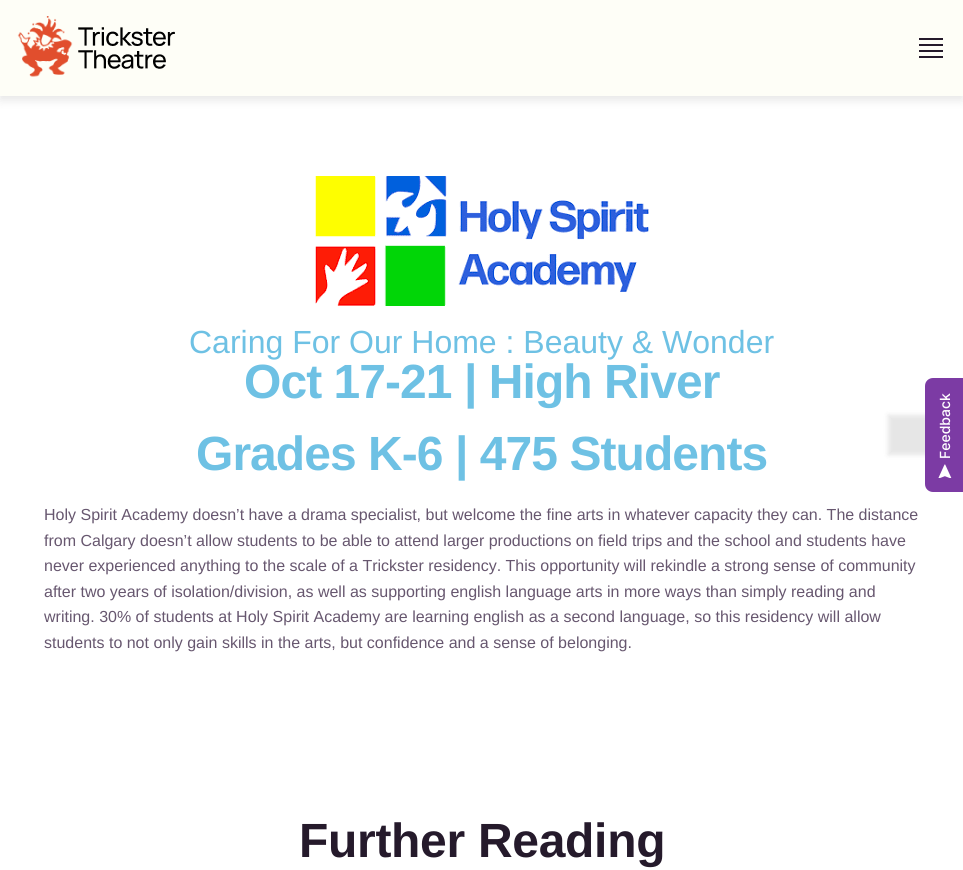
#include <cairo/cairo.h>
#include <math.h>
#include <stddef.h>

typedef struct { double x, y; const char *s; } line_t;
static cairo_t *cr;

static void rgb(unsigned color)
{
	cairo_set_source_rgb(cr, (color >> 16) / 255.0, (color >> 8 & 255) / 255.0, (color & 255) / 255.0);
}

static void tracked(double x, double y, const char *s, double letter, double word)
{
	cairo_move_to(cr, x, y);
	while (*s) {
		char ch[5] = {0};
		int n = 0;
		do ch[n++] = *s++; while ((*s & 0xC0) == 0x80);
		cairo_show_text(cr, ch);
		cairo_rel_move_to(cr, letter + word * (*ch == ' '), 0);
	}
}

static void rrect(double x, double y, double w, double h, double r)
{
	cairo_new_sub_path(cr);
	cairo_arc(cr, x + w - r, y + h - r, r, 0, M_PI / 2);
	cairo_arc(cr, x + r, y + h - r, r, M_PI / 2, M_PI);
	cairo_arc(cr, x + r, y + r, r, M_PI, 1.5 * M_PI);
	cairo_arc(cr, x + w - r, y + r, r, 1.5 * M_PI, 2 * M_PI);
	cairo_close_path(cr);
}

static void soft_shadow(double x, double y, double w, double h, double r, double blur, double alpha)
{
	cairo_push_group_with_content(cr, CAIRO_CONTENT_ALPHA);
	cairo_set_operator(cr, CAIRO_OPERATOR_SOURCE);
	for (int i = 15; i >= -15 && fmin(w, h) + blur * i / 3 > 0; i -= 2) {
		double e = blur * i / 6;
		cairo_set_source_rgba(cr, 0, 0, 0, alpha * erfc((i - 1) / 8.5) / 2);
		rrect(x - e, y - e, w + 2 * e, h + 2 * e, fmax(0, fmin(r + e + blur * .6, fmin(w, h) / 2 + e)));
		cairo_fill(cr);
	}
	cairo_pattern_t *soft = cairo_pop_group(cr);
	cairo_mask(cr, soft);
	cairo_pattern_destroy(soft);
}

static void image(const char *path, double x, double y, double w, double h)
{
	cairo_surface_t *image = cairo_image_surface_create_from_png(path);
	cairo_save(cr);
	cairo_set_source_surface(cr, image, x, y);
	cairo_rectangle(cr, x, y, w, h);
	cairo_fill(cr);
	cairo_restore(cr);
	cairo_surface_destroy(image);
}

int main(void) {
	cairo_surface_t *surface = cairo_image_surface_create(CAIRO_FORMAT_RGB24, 963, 870);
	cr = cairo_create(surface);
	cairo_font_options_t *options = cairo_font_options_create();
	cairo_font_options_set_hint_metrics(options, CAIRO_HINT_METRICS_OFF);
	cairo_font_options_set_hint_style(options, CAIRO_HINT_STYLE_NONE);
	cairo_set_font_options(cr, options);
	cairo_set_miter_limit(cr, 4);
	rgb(0xffffff);
	cairo_paint(cr);
	rgb(0x000000);
	soft_shadow(0, 4, 963, 96, 0, 5, 0.1);
	rgb(0xfefef7);
	cairo_rectangle(cr, 0, 0, 963, 96);
	cairo_fill(cr);
	image("img/1.png", 17, 16, 158, 61);
	image("img/2.png", 919, 38, 24, 20);
	image("img/3.png", 315, 176, 334, 130);
	rgb(0x000000);
	soft_shadow(888, 415, 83, 40, 0, 2.5, 0.1);
	rgb(0x7c3ba4);
	cairo_new_path(cr);
	cairo_move_to(cr, 925, 484);
	cairo_line_to(cr, 925, 386);
	cairo_curve_to(cr, 925, 381, 929, 378, 933, 378);
	cairo_line_to(cr, 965, 378);
	cairo_line_to(cr, 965, 492);
	cairo_line_to(cr, 933, 492);
	cairo_curve_to(cr, 929, 492, 925, 489, 925, 484);
	cairo_close_path(cr);
	cairo_fill(cr);
	image("img/4.png", 938, 464, 14, 14);
	cairo_select_font_face(cr, "Liberation Sans", CAIRO_FONT_SLANT_NORMAL, CAIRO_FONT_WEIGHT_NORMAL);
	cairo_set_font_size(cr, 32);
	rgb(0x6ec1e4);
	cairo_move_to(cr, 189, 353);
	cairo_show_text(cr, "Caring For Our Home : Beauty & Wonder");
	cairo_select_font_face(cr, "Liberation Sans", CAIRO_FONT_SLANT_NORMAL, CAIRO_FONT_WEIGHT_BOLD);
	cairo_set_font_size(cr, 48);
	tracked(244, 398, "Oct 17-21 | High River", -0.95, 0);
	tracked(196, 470, "Grades K-6 | 475 Students", -0.95, 0);
	cairo_select_font_face(cr, "Liberation Sans", CAIRO_FONT_SLANT_NORMAL, CAIRO_FONT_WEIGHT_NORMAL);
	cairo_set_font_size(cr, 16);
	rgb(0x67576f);
	{
		static const line_t items[] = {
			{44, 520, "Holy Spirit Academy doesn’t have a drama specialist, but welcome the fine arts in whatever capacity they can. The distance"},
			{44, 546, "from Calgary doesn’t allow students to be able to attend larger productions on field trips and the school and students have"},
			{44, 571, "never experienced anything to the scale of a Trickster residency. This opportunity will rekindle a strong sense of community"},
			{44, 597, "after two years of isolation/division, as well as supporting english language arts in more ways than simply reading and"},
			{44, 622, "writing. 30% of students at Holy Spirit Academy are learning english as a second language, so this residency will allow"},
			{44, 648, "students to not only gain skills in the arts, but confidence and a sense of belonging."},
		};
		for (size_t i = 0; i < sizeof items / sizeof *items; i++) {
			cairo_move_to(cr, items[i].x, items[i].y);
			cairo_show_text(cr, items[i].s);
		}
	}
	cairo_select_font_face(cr, "Liberation Sans", CAIRO_FONT_SLANT_NORMAL, CAIRO_FONT_WEIGHT_BOLD);
	cairo_set_font_size(cr, 48);
	rgb(0x251a2b);
	tracked(299, 857, "Further Reading", -0.3, 0);
	cairo_select_font_face(cr, "Inter Medium", CAIRO_FONT_SLANT_NORMAL, CAIRO_FONT_WEIGHT_NORMAL);
	cairo_set_font_size(cr, 14);
	rgb(0xffffff);
	cairo_save(cr);
	cairo_translate(cr, 950, 459);
	cairo_rotate(cr, -90 * M_PI / 180);
	cairo_move_to(cr, 0, 0);
	cairo_show_text(cr, "Feedback");
	cairo_restore(cr);
	cairo_surface_write_to_png(surface, "page.png");
	cairo_font_options_destroy(options);
	cairo_destroy(cr);
	cairo_surface_destroy(surface);
	return 0;
}
